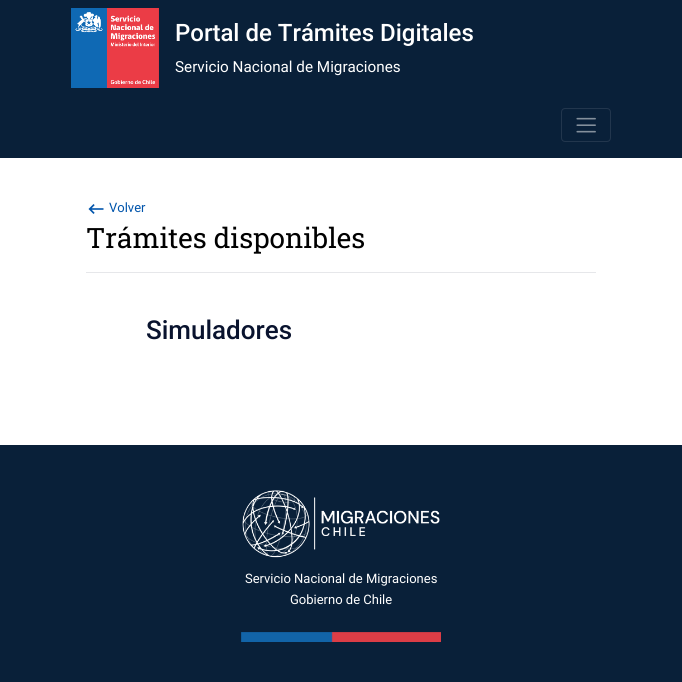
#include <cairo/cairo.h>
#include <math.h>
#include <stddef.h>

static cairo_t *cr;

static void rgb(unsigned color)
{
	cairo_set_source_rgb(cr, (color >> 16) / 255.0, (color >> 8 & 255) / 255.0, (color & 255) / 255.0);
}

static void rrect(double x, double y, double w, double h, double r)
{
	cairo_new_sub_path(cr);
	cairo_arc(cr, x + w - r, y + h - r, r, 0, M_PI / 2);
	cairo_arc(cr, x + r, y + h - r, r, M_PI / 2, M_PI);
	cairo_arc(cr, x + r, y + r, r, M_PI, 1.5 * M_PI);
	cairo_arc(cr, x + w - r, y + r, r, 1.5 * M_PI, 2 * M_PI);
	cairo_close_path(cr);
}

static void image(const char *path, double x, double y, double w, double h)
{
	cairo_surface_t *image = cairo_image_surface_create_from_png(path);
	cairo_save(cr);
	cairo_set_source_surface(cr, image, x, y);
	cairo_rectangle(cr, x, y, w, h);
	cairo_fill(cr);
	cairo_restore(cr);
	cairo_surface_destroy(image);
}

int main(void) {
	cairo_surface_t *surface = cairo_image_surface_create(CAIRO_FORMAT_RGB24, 682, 682);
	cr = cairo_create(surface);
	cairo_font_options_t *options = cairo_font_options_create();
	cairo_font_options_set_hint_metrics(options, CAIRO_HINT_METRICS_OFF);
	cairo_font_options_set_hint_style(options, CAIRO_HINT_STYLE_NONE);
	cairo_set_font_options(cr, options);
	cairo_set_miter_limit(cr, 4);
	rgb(0xffffff);
	cairo_paint(cr);
	rgb(0x092039);
	cairo_rectangle(cr, 0, 0, 682, 158);
	cairo_fill(cr);
	image("img/1.png", 71, 8, 88, 80);
	rrect(561.5, 108.5, 49, 33, 3.5);
	rgb(0x22364d);
	cairo_set_line_width(cr, 1);
	cairo_stroke(cr);
	image("img/2.png", 576, 117, 20, 16);
	image("img/3.png", 88, 204, 16, 10);
	rgb(0xe6e7ea);
	cairo_rectangle(cr, 86, 272, 510, 1);
	cairo_fill(cr);
	rgb(0x092039);
	cairo_rectangle(cr, 0, 445, 682, 237);
	cairo_fill(cr);
	image("img/4.png", 242, 490, 198, 68);
	image("img/5.png", 241, 632, 200, 10);
	cairo_select_font_face(cr, "Roboto Medium", CAIRO_FONT_SLANT_NORMAL, CAIRO_FONT_WEIGHT_NORMAL);
	cairo_set_font_size(cr, 24);
	rgb(0xffffff);
	cairo_move_to(cr, 175, 41);
	cairo_show_text(cr, "Portal de Trámites Digitales");
	cairo_select_font_face(cr, "Roboto", CAIRO_FONT_SLANT_NORMAL, CAIRO_FONT_WEIGHT_NORMAL);
	cairo_set_font_size(cr, 15.25);
	cairo_move_to(cr, 175, 72);
	cairo_show_text(cr, "Servicio Nacional de Migraciones");
	cairo_set_font_size(cr, 13);
	rgb(0x0054ab);
	cairo_move_to(cr, 109, 212);
	cairo_show_text(cr, "Volver");
	cairo_select_font_face(cr, "Roboto Slab", CAIRO_FONT_SLANT_NORMAL, CAIRO_FONT_WEIGHT_NORMAL);
	cairo_set_font_size(cr, 28);
	rgb(0x000000);
	cairo_move_to(cr, 86, 248);
	cairo_show_text(cr, "Trámites disponibles");
	cairo_select_font_face(cr, "Roboto Medium", CAIRO_FONT_SLANT_NORMAL, CAIRO_FONT_WEIGHT_NORMAL);
	cairo_set_font_size(cr, 26);
	rgb(0x09132e);
	cairo_move_to(cr, 146, 339);
	cairo_show_text(cr, "Simuladores");
	cairo_select_font_face(cr, "Roboto", CAIRO_FONT_SLANT_NORMAL, CAIRO_FONT_WEIGHT_NORMAL);
	cairo_set_font_size(cr, 13);
	rgb(0xffffff);
	cairo_move_to(cr, 245, 583);
	cairo_show_text(cr, "Servicio Nacional de Migraciones");
	cairo_move_to(cr, 290, 604);
	cairo_show_text(cr, "Gobierno de Chile");
	cairo_surface_write_to_png(surface, "page.png");
	cairo_font_options_destroy(options);
	cairo_destroy(cr);
	cairo_surface_destroy(surface);
	return 0;
}
